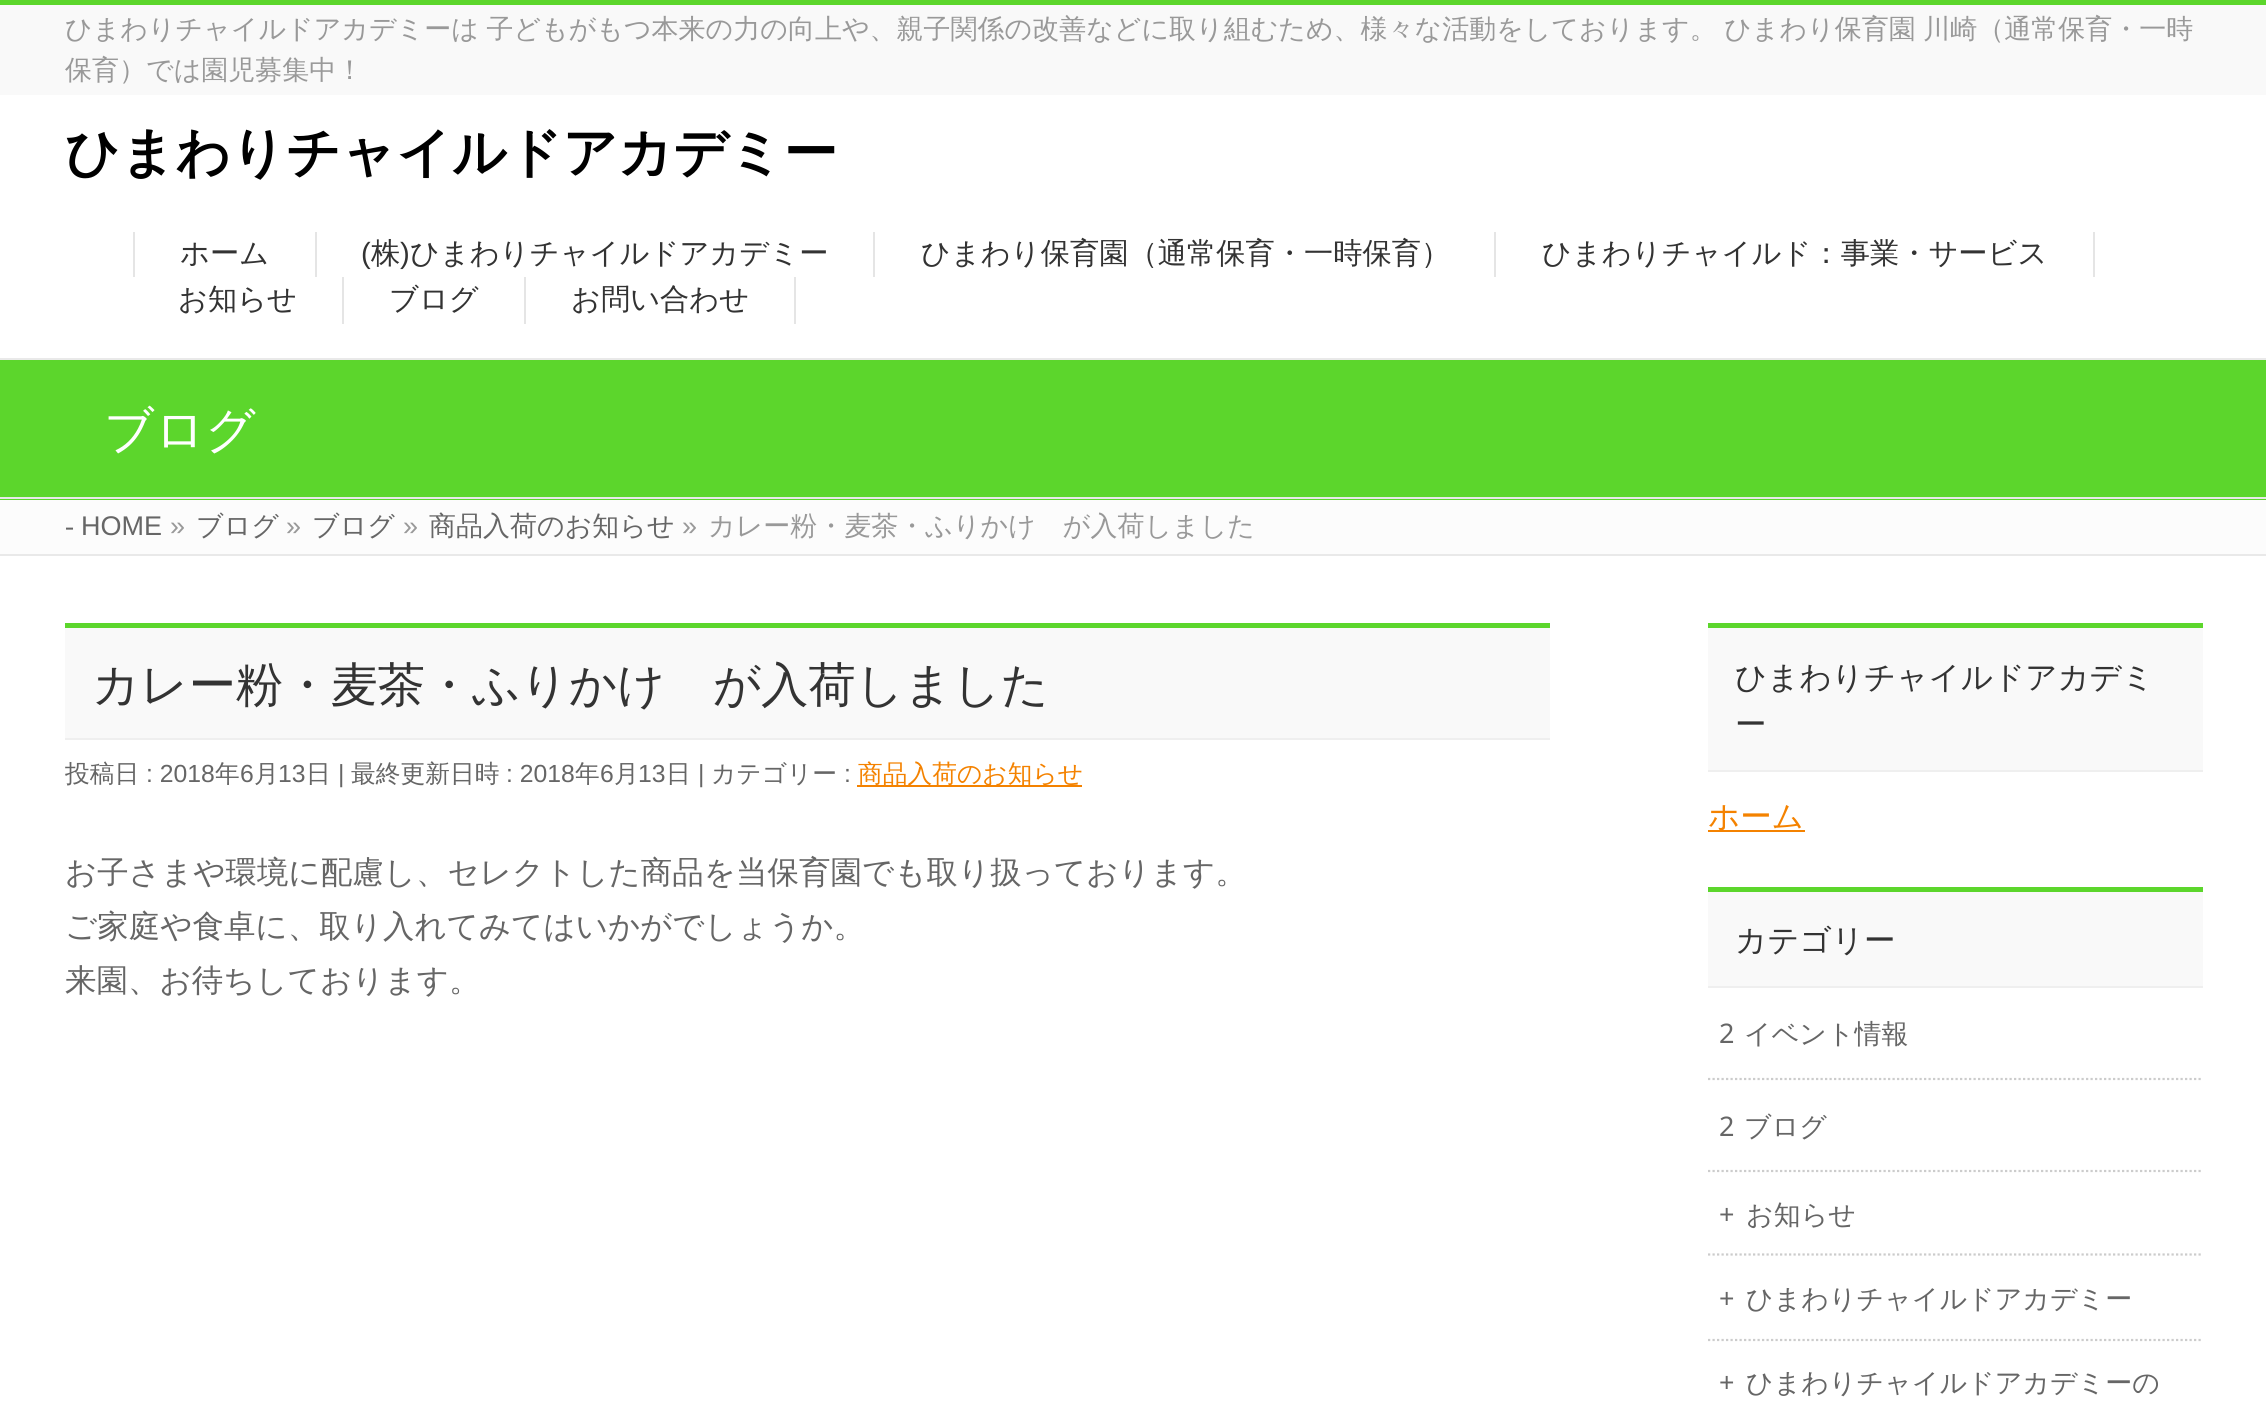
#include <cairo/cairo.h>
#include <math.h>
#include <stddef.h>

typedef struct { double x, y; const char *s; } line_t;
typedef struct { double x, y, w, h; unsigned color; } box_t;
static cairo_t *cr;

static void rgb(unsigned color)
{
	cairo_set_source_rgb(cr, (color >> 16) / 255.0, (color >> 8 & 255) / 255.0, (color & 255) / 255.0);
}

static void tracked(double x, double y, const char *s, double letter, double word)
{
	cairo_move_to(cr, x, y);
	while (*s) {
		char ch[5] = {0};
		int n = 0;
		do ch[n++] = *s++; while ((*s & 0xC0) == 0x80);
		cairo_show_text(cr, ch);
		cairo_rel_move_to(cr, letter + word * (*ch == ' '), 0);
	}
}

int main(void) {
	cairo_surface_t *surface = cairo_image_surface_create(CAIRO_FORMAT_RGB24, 2266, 1413);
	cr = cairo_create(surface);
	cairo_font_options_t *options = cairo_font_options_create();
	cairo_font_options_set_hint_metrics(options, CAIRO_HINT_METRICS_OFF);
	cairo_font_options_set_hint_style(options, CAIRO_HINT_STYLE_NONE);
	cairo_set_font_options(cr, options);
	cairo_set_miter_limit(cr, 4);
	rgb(0xffffff);
	cairo_paint(cr);
	{
		static const box_t items[] = {
			{0, 5, 2266, 90, 0xf9f9f9},
			{0, 0, 2266, 5, 0x5cd62c},
			{315, 232, 2, 45, 0xe5e5e5},
			{133, 232, 2, 45, 0xe5e5e5},
			{873, 232, 2, 45, 0xe5e5e5},
			{1494, 232, 2, 45, 0xe5e5e5},
			{2093, 232, 2, 45, 0xe5e5e5},
			{342, 277, 2, 47, 0xe5e5e5},
			{524, 277, 2, 47, 0xe5e5e5},
			{794, 277, 2, 47, 0xe5e5e5},
			{0, 360, 2266, 140, 0x5cd62c},
			{0, 358, 2266, 2, 0xe9e9e9},
			{0, 497, 2266, 2, 0xe9e9e9},
			{0, 500, 2266, 54, 0xfcfcfc},
			{0, 554, 2266, 2, 0xe9e9e9},
			{65, 628, 1485, 110, 0xf9f9f9},
			{65, 623, 1485, 5, 0x5cd62c},
			{65, 738, 1485, 2, 0xefefef},
			{857, 785, 225, 2, 0xf48200},
			{1708, 628, 495, 142, 0xf9f9f9},
			{1708, 623, 495, 5, 0x5cd62c},
			{1708, 770, 495, 2, 0xefefef},
			{1708, 830, 97, 2, 0xf48200},
			{1708, 892, 495, 94, 0xf9f9f9},
			{1708, 887, 495, 5, 0x5cd62c},
			{1708, 986, 495, 2, 0xefefef},
		};
		for (size_t i = 0; i < sizeof items / sizeof *items; i++) {
			rgb(items[i].color);
			cairo_rectangle(cr, items[i].x, items[i].y, items[i].w, items[i].h);
			cairo_fill(cr);
		}
	}
	cairo_new_path(cr);
	cairo_move_to(cr, 1708, 1079);
	cairo_line_to(cr, 2203, 1079);
	rgb(0xcccccc);
	cairo_set_line_width(cr, 2.2);
	cairo_set_dash(cr, (double[]){2.25, 2.25}, 2, 0);
	cairo_stroke(cr);
	cairo_new_path(cr);
	cairo_move_to(cr, 1708, 1171);
	cairo_line_to(cr, 2203, 1171);
	cairo_stroke(cr);
	cairo_new_path(cr);
	cairo_move_to(cr, 1708, 1254.5);
	cairo_line_to(cr, 2203, 1254.5);
	cairo_stroke(cr);
	cairo_new_path(cr);
	cairo_move_to(cr, 1708, 1340);
	cairo_line_to(cr, 2203, 1340);
	cairo_stroke(cr);
	cairo_select_font_face(cr, "WenQuanYi Zen Hei Medium", CAIRO_FONT_SLANT_NORMAL, CAIRO_FONT_WEIGHT_NORMAL);
	cairo_set_font_size(cr, 27);
	rgb(0x999999);
	tracked(65, 38, "ひまわりチャイルドアカデミーは 子どもがもつ本来の力の向上や、親子関係の改善などに取り組むため、様々な活動をしております。 ひまわり保育園 川崎（通常保育・一時", 0, -0.5);
	cairo_move_to(cr, 65, 79);
	cairo_show_text(cr, "保育）では園児募集中！");
	cairo_select_font_face(cr, "WenQuanYi Zen Hei", CAIRO_FONT_SLANT_NORMAL, CAIRO_FONT_WEIGHT_BOLD);
	cairo_set_font_size(cr, 54);
	rgb(0x000000);
	cairo_move_to(cr, 65, 171);
	cairo_show_text(cr, "ひまわりチャイルドアカデミー");
	cairo_select_font_face(cr, "WenQuanYi Zen Hei Medium", CAIRO_FONT_SLANT_NORMAL, CAIRO_FONT_WEIGHT_NORMAL);
	cairo_set_font_size(cr, 29.25);
	rgb(0x333333);
	cairo_move_to(cr, 180, 263);
	cairo_show_text(cr, "ホーム");
	cairo_select_font_face(cr, "Liberation Sans", CAIRO_FONT_SLANT_NORMAL, CAIRO_FONT_WEIGHT_NORMAL);
	cairo_move_to(cr, 361, 263);
	cairo_show_text(cr, "(");
	cairo_select_font_face(cr, "WenQuanYi Zen Hei Medium", CAIRO_FONT_SLANT_NORMAL, CAIRO_FONT_WEIGHT_NORMAL);
	cairo_move_to(cr, 371, 263);
	cairo_show_text(cr, "株");
	cairo_select_font_face(cr, "Liberation Sans", CAIRO_FONT_SLANT_NORMAL, CAIRO_FONT_WEIGHT_NORMAL);
	cairo_move_to(cr, 400, 263);
	cairo_show_text(cr, ")");
	cairo_select_font_face(cr, "WenQuanYi Zen Hei Medium", CAIRO_FONT_SLANT_NORMAL, CAIRO_FONT_WEIGHT_NORMAL);
	{
		static const line_t items[] = {
			{410, 263, "ひまわりチャイルドアカデミー"},
			{921, 263, "ひまわり保育園（通常保育・一時保育）"},
			{1542, 263, "ひまわりチャイルド：事業・サービス"},
			{178, 309, "お知らせ"},
			{389, 309, "ブログ"},
			{571, 309, "お問い合わせ"},
		};
		for (size_t i = 0; i < sizeof items / sizeof *items; i++) {
			cairo_move_to(cr, items[i].x, items[i].y);
			cairo_show_text(cr, items[i].s);
		}
	}
	cairo_set_font_size(cr, 49.5);
	rgb(0xffffff);
	cairo_move_to(cr, 104, 447);
	cairo_show_text(cr, "ブログ");
	cairo_select_font_face(cr, "Liberation Serif", CAIRO_FONT_SLANT_NORMAL, CAIRO_FONT_WEIGHT_NORMAL);
	cairo_set_font_size(cr, 27);
	rgb(0x666666);
	cairo_move_to(cr, 65, 535);
	cairo_show_text(cr, "-");
	cairo_select_font_face(cr, "Liberation Sans", CAIRO_FONT_SLANT_NORMAL, CAIRO_FONT_WEIGHT_NORMAL);
	cairo_move_to(cr, 81, 535);
	cairo_show_text(cr, "HOME");
	rgb(0x999999);
	cairo_move_to(cr, 170, 535);
	cairo_show_text(cr, "»");
	cairo_select_font_face(cr, "WenQuanYi Zen Hei Medium", CAIRO_FONT_SLANT_NORMAL, CAIRO_FONT_WEIGHT_NORMAL);
	rgb(0x666666);
	cairo_move_to(cr, 196, 535);
	cairo_show_text(cr, "ブログ");
	cairo_select_font_face(cr, "Liberation Sans", CAIRO_FONT_SLANT_NORMAL, CAIRO_FONT_WEIGHT_NORMAL);
	rgb(0x999999);
	cairo_move_to(cr, 286, 535);
	cairo_show_text(cr, "»");
	cairo_select_font_face(cr, "WenQuanYi Zen Hei Medium", CAIRO_FONT_SLANT_NORMAL, CAIRO_FONT_WEIGHT_NORMAL);
	rgb(0x666666);
	cairo_move_to(cr, 312, 535);
	cairo_show_text(cr, "ブログ");
	cairo_select_font_face(cr, "Liberation Sans", CAIRO_FONT_SLANT_NORMAL, CAIRO_FONT_WEIGHT_NORMAL);
	rgb(0x999999);
	cairo_move_to(cr, 403, 535);
	cairo_show_text(cr, "»");
	cairo_select_font_face(cr, "WenQuanYi Zen Hei Medium", CAIRO_FONT_SLANT_NORMAL, CAIRO_FONT_WEIGHT_NORMAL);
	rgb(0x666666);
	cairo_move_to(cr, 429, 535);
	cairo_show_text(cr, "商品入荷のお知らせ");
	cairo_select_font_face(cr, "Liberation Sans", CAIRO_FONT_SLANT_NORMAL, CAIRO_FONT_WEIGHT_NORMAL);
	rgb(0x999999);
	cairo_move_to(cr, 682, 535);
	cairo_show_text(cr, "»");
	cairo_select_font_face(cr, "WenQuanYi Zen Hei Medium", CAIRO_FONT_SLANT_NORMAL, CAIRO_FONT_WEIGHT_NORMAL);
	cairo_move_to(cr, 708, 535);
	cairo_show_text(cr, "カレー粉・麦茶・ふりかけ　が入荷しました");
	cairo_set_font_size(cr, 47.25);
	rgb(0x333333);
	cairo_move_to(cr, 92, 701);
	cairo_show_text(cr, "カレー粉・麦茶・ふりかけ　が入荷しました");
	cairo_set_font_size(cr, 24.75);
	rgb(0x666666);
	cairo_move_to(cr, 65, 782);
	cairo_show_text(cr, "投稿日");
	cairo_select_font_face(cr, "Liberation Sans", CAIRO_FONT_SLANT_NORMAL, CAIRO_FONT_WEIGHT_NORMAL);
	cairo_move_to(cr, 146, 782);
	cairo_show_text(cr, ": 2018");
	cairo_select_font_face(cr, "WenQuanYi Zen Hei Medium", CAIRO_FONT_SLANT_NORMAL, CAIRO_FONT_WEIGHT_NORMAL);
	cairo_move_to(cr, 215, 782);
	cairo_show_text(cr, "年");
	cairo_select_font_face(cr, "Liberation Sans", CAIRO_FONT_SLANT_NORMAL, CAIRO_FONT_WEIGHT_NORMAL);
	cairo_move_to(cr, 240, 782);
	cairo_show_text(cr, "6");
	cairo_select_font_face(cr, "WenQuanYi Zen Hei Medium", CAIRO_FONT_SLANT_NORMAL, CAIRO_FONT_WEIGHT_NORMAL);
	cairo_move_to(cr, 254, 782);
	cairo_show_text(cr, "月");
	cairo_select_font_face(cr, "Liberation Sans", CAIRO_FONT_SLANT_NORMAL, CAIRO_FONT_WEIGHT_NORMAL);
	cairo_move_to(cr, 278, 782);
	cairo_show_text(cr, "13");
	cairo_select_font_face(cr, "WenQuanYi Zen Hei Medium", CAIRO_FONT_SLANT_NORMAL, CAIRO_FONT_WEIGHT_NORMAL);
	cairo_move_to(cr, 306, 782);
	cairo_show_text(cr, "日");
	cairo_select_font_face(cr, "Liberation Sans", CAIRO_FONT_SLANT_NORMAL, CAIRO_FONT_WEIGHT_NORMAL);
	cairo_move_to(cr, 338, 782);
	cairo_show_text(cr, "|");
	cairo_select_font_face(cr, "WenQuanYi Zen Hei Medium", CAIRO_FONT_SLANT_NORMAL, CAIRO_FONT_WEIGHT_NORMAL);
	cairo_move_to(cr, 351, 782);
	cairo_show_text(cr, "最終更新日時");
	cairo_select_font_face(cr, "Liberation Sans", CAIRO_FONT_SLANT_NORMAL, CAIRO_FONT_WEIGHT_NORMAL);
	cairo_move_to(cr, 506, 782);
	cairo_show_text(cr, ": 2018");
	cairo_select_font_face(cr, "WenQuanYi Zen Hei Medium", CAIRO_FONT_SLANT_NORMAL, CAIRO_FONT_WEIGHT_NORMAL);
	cairo_move_to(cr, 575, 782);
	cairo_show_text(cr, "年");
	cairo_select_font_face(cr, "Liberation Sans", CAIRO_FONT_SLANT_NORMAL, CAIRO_FONT_WEIGHT_NORMAL);
	cairo_move_to(cr, 600, 782);
	cairo_show_text(cr, "6");
	cairo_select_font_face(cr, "WenQuanYi Zen Hei Medium", CAIRO_FONT_SLANT_NORMAL, CAIRO_FONT_WEIGHT_NORMAL);
	cairo_move_to(cr, 614, 782);
	cairo_show_text(cr, "月");
	cairo_select_font_face(cr, "Liberation Sans", CAIRO_FONT_SLANT_NORMAL, CAIRO_FONT_WEIGHT_NORMAL);
	cairo_move_to(cr, 638, 782);
	cairo_show_text(cr, "13");
	cairo_select_font_face(cr, "WenQuanYi Zen Hei Medium", CAIRO_FONT_SLANT_NORMAL, CAIRO_FONT_WEIGHT_NORMAL);
	cairo_move_to(cr, 666, 782);
	cairo_show_text(cr, "日");
	cairo_select_font_face(cr, "Liberation Sans", CAIRO_FONT_SLANT_NORMAL, CAIRO_FONT_WEIGHT_NORMAL);
	cairo_move_to(cr, 698, 782);
	cairo_show_text(cr, "|");
	cairo_select_font_face(cr, "WenQuanYi Zen Hei Medium", CAIRO_FONT_SLANT_NORMAL, CAIRO_FONT_WEIGHT_NORMAL);
	cairo_move_to(cr, 711, 782);
	cairo_show_text(cr, "カテゴリー");
	cairo_select_font_face(cr, "Liberation Sans", CAIRO_FONT_SLANT_NORMAL, CAIRO_FONT_WEIGHT_NORMAL);
	cairo_move_to(cr, 844, 782);
	cairo_show_text(cr, ":");
	cairo_select_font_face(cr, "WenQuanYi Zen Hei Medium", CAIRO_FONT_SLANT_NORMAL, CAIRO_FONT_WEIGHT_NORMAL);
	rgb(0xf48200);
	cairo_move_to(cr, 858, 782);
	cairo_show_text(cr, "商品入荷のお知らせ");
	cairo_set_font_size(cr, 31.5);
	rgb(0x666666);
	{
		static const line_t items[] = {
			{65, 883, "お子さまや環境に配慮し、セレクトした商品を当保育園でも取り扱っております。"},
			{65, 937, "ご家庭や食卓に、取り入れてみてはいかがでしょうか。"},
			{65, 991, "来園、お待ちしております。"},
		};
		for (size_t i = 0; i < sizeof items / sizeof *items; i++) {
			cairo_move_to(cr, items[i].x, items[i].y);
			cairo_show_text(cr, items[i].s);
		}
	}
	rgb(0x333333);
	cairo_move_to(cr, 1735, 688);
	cairo_show_text(cr, "ひまわりチャイルドアカデミ");
	cairo_move_to(cr, 1735, 735);
	cairo_show_text(cr, "ー");
	rgb(0xf48200);
	cairo_move_to(cr, 1708, 827);
	cairo_show_text(cr, "ホーム");
	rgb(0x333333);
	cairo_move_to(cr, 1735, 951);
	cairo_show_text(cr, "カテゴリー");
	cairo_select_font_face(cr, "Noto Sans", CAIRO_FONT_SLANT_NORMAL, CAIRO_FONT_WEIGHT_NORMAL);
	cairo_set_font_size(cr, 27);
	rgb(0x666666);
	cairo_move_to(cr, 1719, 1043);
	cairo_show_text(cr, "2");
	cairo_select_font_face(cr, "WenQuanYi Zen Hei Medium", CAIRO_FONT_SLANT_NORMAL, CAIRO_FONT_WEIGHT_NORMAL);
	cairo_move_to(cr, 1744, 1043);
	cairo_show_text(cr, "イベント情報");
	cairo_select_font_face(cr, "Noto Sans", CAIRO_FONT_SLANT_NORMAL, CAIRO_FONT_WEIGHT_NORMAL);
	cairo_move_to(cr, 1719, 1136);
	cairo_show_text(cr, "2");
	cairo_select_font_face(cr, "WenQuanYi Zen Hei Medium", CAIRO_FONT_SLANT_NORMAL, CAIRO_FONT_WEIGHT_NORMAL);
	cairo_move_to(cr, 1744, 1136);
	cairo_show_text(cr, "ブログ");
	cairo_select_font_face(cr, "Noto Sans", CAIRO_FONT_SLANT_NORMAL, CAIRO_FONT_WEIGHT_NORMAL);
	cairo_move_to(cr, 1719, 1224);
	cairo_show_text(cr, "+");
	cairo_select_font_face(cr, "WenQuanYi Zen Hei Medium", CAIRO_FONT_SLANT_NORMAL, CAIRO_FONT_WEIGHT_NORMAL);
	cairo_move_to(cr, 1746, 1224);
	cairo_show_text(cr, "お知らせ");
	cairo_select_font_face(cr, "Noto Sans", CAIRO_FONT_SLANT_NORMAL, CAIRO_FONT_WEIGHT_NORMAL);
	cairo_move_to(cr, 1719, 1308);
	cairo_show_text(cr, "+");
	cairo_select_font_face(cr, "WenQuanYi Zen Hei Medium", CAIRO_FONT_SLANT_NORMAL, CAIRO_FONT_WEIGHT_NORMAL);
	cairo_move_to(cr, 1746, 1308);
	cairo_show_text(cr, "ひまわりチャイルドアカデミー");
	cairo_select_font_face(cr, "Noto Sans", CAIRO_FONT_SLANT_NORMAL, CAIRO_FONT_WEIGHT_NORMAL);
	cairo_move_to(cr, 1719, 1392);
	cairo_show_text(cr, "+");
	cairo_select_font_face(cr, "WenQuanYi Zen Hei Medium", CAIRO_FONT_SLANT_NORMAL, CAIRO_FONT_WEIGHT_NORMAL);
	cairo_move_to(cr, 1746, 1392);
	cairo_show_text(cr, "ひまわりチャイルドアカデミーの");
	cairo_surface_write_to_png(surface, "page.png");
	cairo_font_options_destroy(options);
	cairo_destroy(cr);
	cairo_surface_destroy(surface);
	return 0;
}
